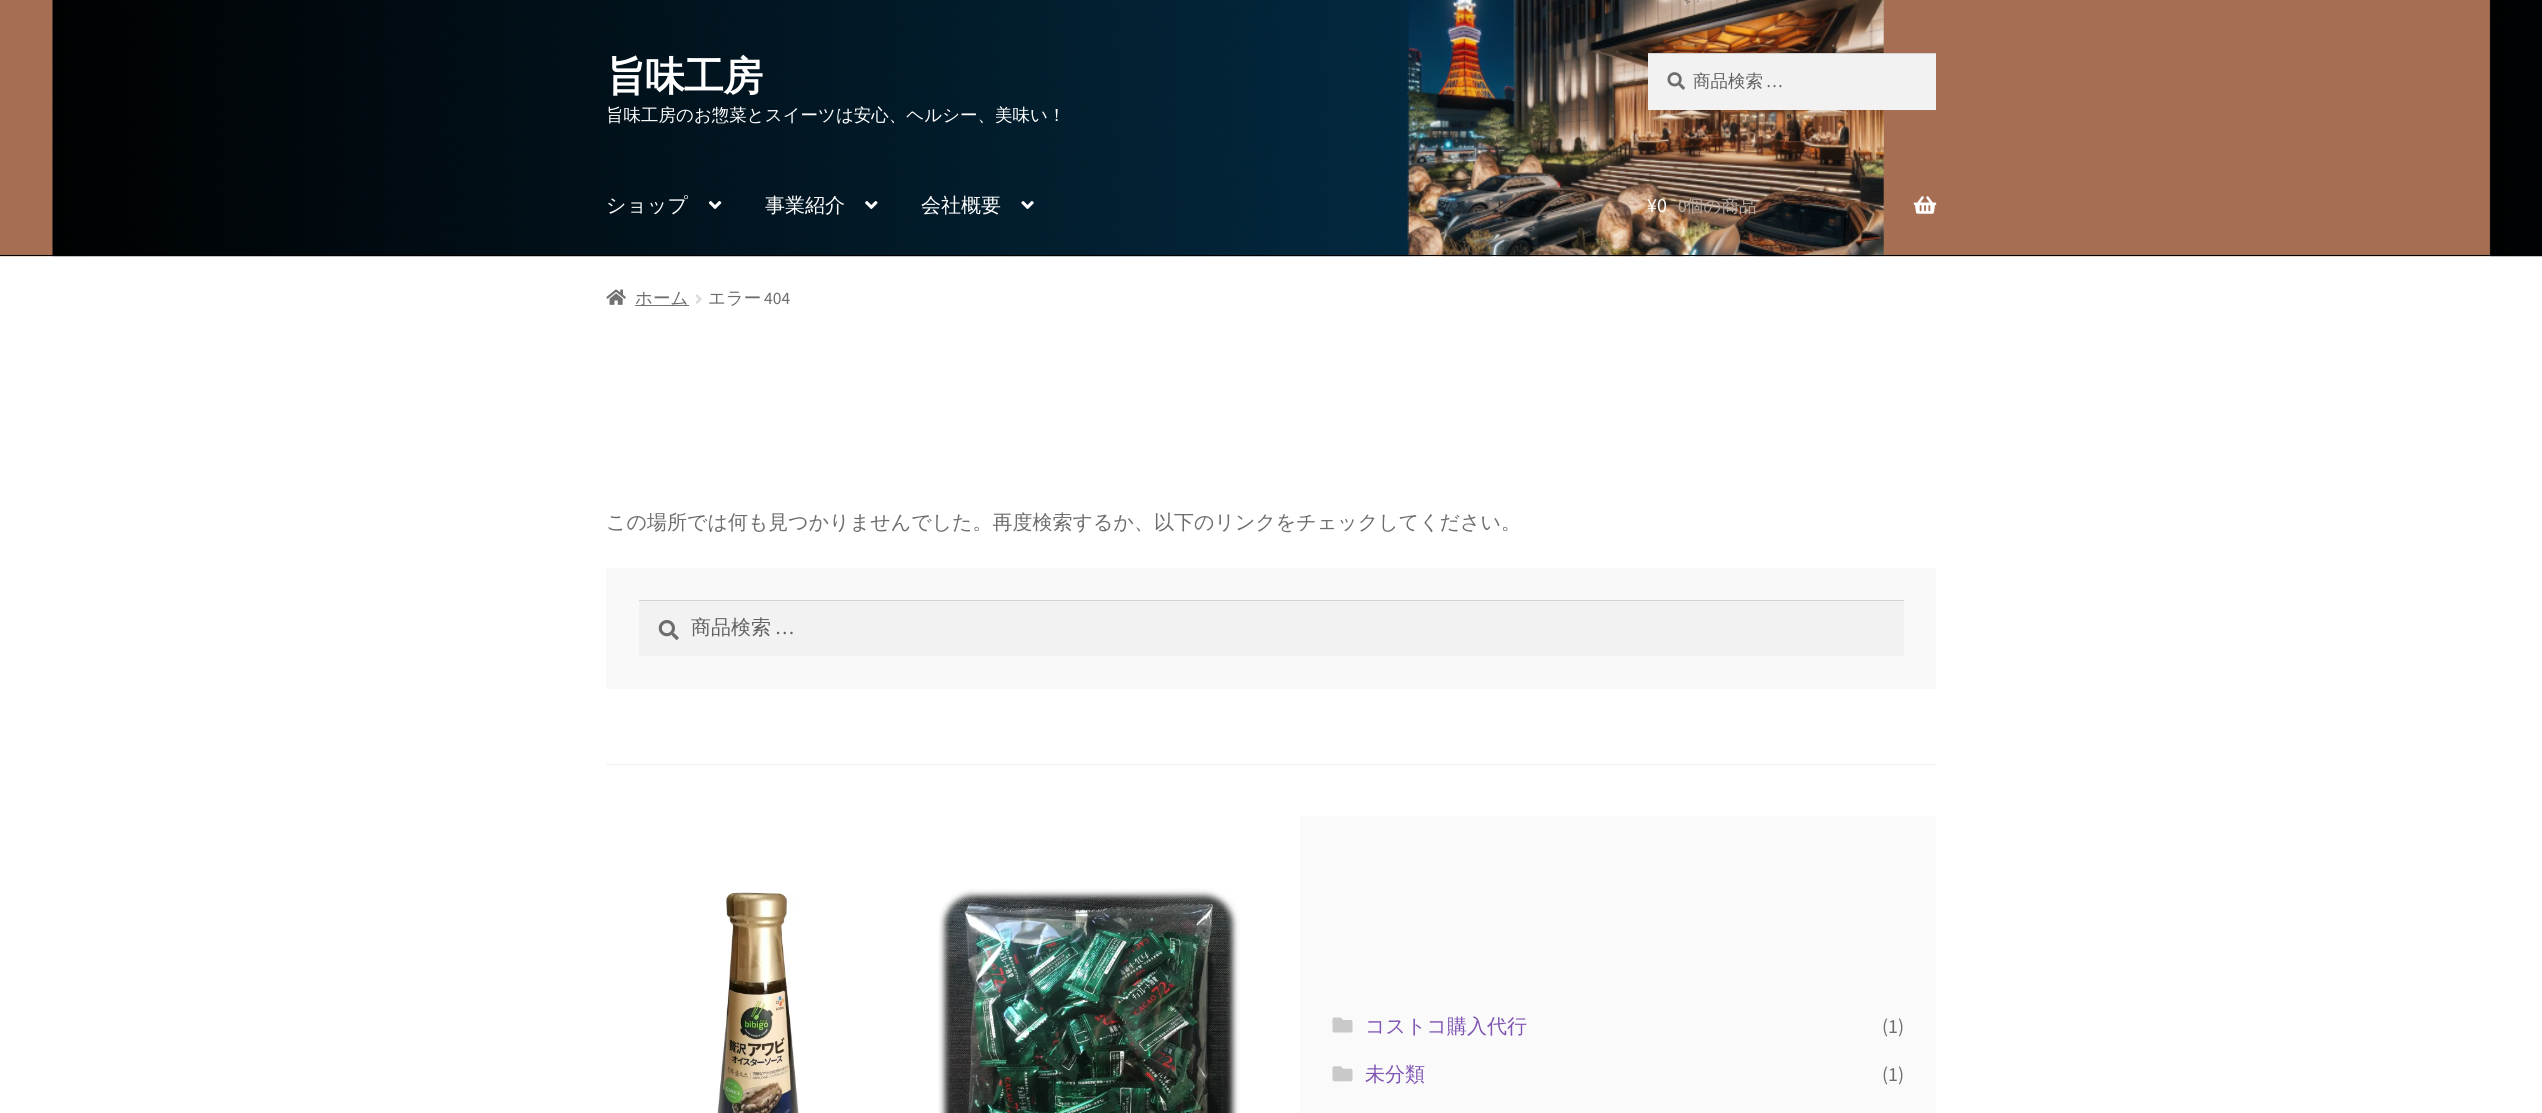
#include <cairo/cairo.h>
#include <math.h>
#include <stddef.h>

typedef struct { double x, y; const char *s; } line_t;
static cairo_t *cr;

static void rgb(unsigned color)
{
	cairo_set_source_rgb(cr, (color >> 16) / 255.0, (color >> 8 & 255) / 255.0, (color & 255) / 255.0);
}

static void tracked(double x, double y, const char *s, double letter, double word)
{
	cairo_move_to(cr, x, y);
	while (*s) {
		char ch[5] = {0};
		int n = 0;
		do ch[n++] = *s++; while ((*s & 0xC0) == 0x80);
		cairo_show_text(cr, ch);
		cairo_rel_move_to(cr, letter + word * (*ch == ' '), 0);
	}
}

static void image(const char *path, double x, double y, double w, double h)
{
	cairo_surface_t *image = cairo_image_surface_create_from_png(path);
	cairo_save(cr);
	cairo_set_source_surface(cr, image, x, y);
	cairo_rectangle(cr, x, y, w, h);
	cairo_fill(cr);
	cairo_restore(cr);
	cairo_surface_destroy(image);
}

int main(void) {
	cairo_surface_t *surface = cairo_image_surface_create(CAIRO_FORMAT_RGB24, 2542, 1113);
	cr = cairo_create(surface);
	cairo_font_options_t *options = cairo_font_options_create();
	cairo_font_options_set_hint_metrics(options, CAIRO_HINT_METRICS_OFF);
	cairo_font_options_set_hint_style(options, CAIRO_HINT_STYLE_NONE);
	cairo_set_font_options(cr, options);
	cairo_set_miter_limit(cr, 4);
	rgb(0xffffff);
	cairo_paint(cr);
	image("img/1.png", 0, 0, 2542, 257);
	rgb(0x000000);
	cairo_rectangle(cr, 0, 255, 2542, 1);
	cairo_fill(cr);
	rgb(0xf2f2f2);
	cairo_rectangle(cr, 1648, 54, 288, 56);
	cairo_fill(cr);
	image("img/2.png", 1667, 72, 18, 18);
	rgb(0xd4d4d4);
	cairo_rectangle(cr, 1648, 53, 288, 1);
	cairo_fill(cr);
	image("img/3.png", 708, 201, 14, 8);
	image("img/4.png", 865, 201, 13, 8);
	image("img/5.png", 1021, 201, 13, 8);
	image("img/6.png", 1913, 196, 24, 18);
	image("img/7.png", 606, 289, 20, 16);
	rgb(0x727272);
	cairo_rectangle(cr, 635, 305, 54, 1);
	cairo_fill(cr);
	image("img/8.png", 695, 294, 7, 10);
	rgb(0xf9f9f9);
	cairo_rectangle(cr, 606, 568, 1330, 121);
	cairo_fill(cr);
	rgb(0xf2f2f2);
	cairo_rectangle(cr, 639, 601, 1265, 55);
	cairo_fill(cr);
	image("img/9.png", 658, 620, 21, 20);
	rgb(0xd4d4d4);
	cairo_rectangle(cr, 639, 600, 1265, 1);
	cairo_fill(cr);
	rgb(0xf2f2f2);
	cairo_rectangle(cr, 606, 764, 1330, 1);
	cairo_fill(cr);
	image("img/10.png", 717, 892, 82, 221);
	image("img/11.png", 938, 888, 302, 225);
	rgb(0xfafafa);
	cairo_rectangle(cr, 1300, 816, 636, 297);
	cairo_fill(cr);
	image("img/12.png", 1332, 1017, 21, 16);
	image("img/13.png", 1332, 1066, 21, 16);
	cairo_select_font_face(cr, "WenQuanYi Zen Hei", CAIRO_FONT_SLANT_NORMAL, CAIRO_FONT_WEIGHT_BOLD);
	cairo_set_font_size(cr, 40);
	rgb(0xffffff);
	tracked(606, 90, "旨味工房", -1, 0);
	cairo_select_font_face(cr, "WenQuanYi Zen Hei Medium", CAIRO_FONT_SLANT_NORMAL, CAIRO_FONT_WEIGHT_NORMAL);
	cairo_set_font_size(cr, 17.5);
	cairo_move_to(cr, 606, 121);
	cairo_show_text(cr, "旨味工房のお惣菜とスイーツは安心、ヘルシー、美味い！");
	rgb(0x616161);
	cairo_move_to(cr, 1693, 87);
	cairo_show_text(cr, "商品検索");
	cairo_select_font_face(cr, "Source Sans Pro", CAIRO_FONT_SLANT_NORMAL, CAIRO_FONT_WEIGHT_NORMAL);
	cairo_move_to(cr, 1766, 87);
	cairo_show_text(cr, "…");
	cairo_select_font_face(cr, "WenQuanYi Zen Hei Medium", CAIRO_FONT_SLANT_NORMAL, CAIRO_FONT_WEIGHT_NORMAL);
	cairo_set_font_size(cr, 20);
	rgb(0xffffff);
	{
		static const line_t items[] = {
			{606, 212, "ショップ"},
			{765, 212, "事業紹介"},
			{921, 212, "会社概要"},
		};
		for (size_t i = 0; i < sizeof items / sizeof *items; i++) {
			cairo_move_to(cr, items[i].x, items[i].y);
			cairo_show_text(cr, items[i].s);
		}
	}
	cairo_select_font_face(cr, "Source Sans Pro", CAIRO_FONT_SLANT_NORMAL, CAIRO_FONT_WEIGHT_NORMAL);
	cairo_move_to(cr, 1647, 212);
	cairo_show_text(cr, "¥0");
	cairo_set_font_size(cr, 17.5);
	rgb(0xbbafa6);
	cairo_move_to(cr, 1678, 212);
	cairo_show_text(cr, "0");
	cairo_select_font_face(cr, "WenQuanYi Zen Hei Medium", CAIRO_FONT_SLANT_NORMAL, CAIRO_FONT_WEIGHT_NORMAL);
	rgb(0xb4a9a2);
	cairo_move_to(cr, 1686, 212);
	cairo_show_text(cr, "個の商品");
	rgb(0x6d6d6d);
	cairo_move_to(cr, 635, 304);
	cairo_show_text(cr, "ホーム");
	cairo_move_to(cr, 708, 304);
	cairo_show_text(cr, "エラー");
	cairo_select_font_face(cr, "Source Sans Pro", CAIRO_FONT_SLANT_NORMAL, CAIRO_FONT_WEIGHT_NORMAL);
	cairo_move_to(cr, 764, 304);
	cairo_show_text(cr, "404");
	cairo_select_font_face(cr, "WenQuanYi Zen Hei Medium", CAIRO_FONT_SLANT_NORMAL, CAIRO_FONT_WEIGHT_NORMAL);
	cairo_set_font_size(cr, 20);
	cairo_move_to(cr, 606, 529);
	cairo_show_text(cr, "この場所では何も見つかりませんでした。再度検索するか、以下のリンクをチェックしてください。");
	rgb(0x616161);
	cairo_move_to(cr, 691, 634);
	cairo_show_text(cr, "商品検索");
	cairo_select_font_face(cr, "Source Sans Pro", CAIRO_FONT_SLANT_NORMAL, CAIRO_FONT_WEIGHT_NORMAL);
	cairo_move_to(cr, 775, 634);
	cairo_show_text(cr, "…");
	cairo_select_font_face(cr, "WenQuanYi Zen Hei Medium", CAIRO_FONT_SLANT_NORMAL, CAIRO_FONT_WEIGHT_NORMAL);
	rgb(0x7f54b3);
	cairo_move_to(cr, 1365, 1033);
	cairo_show_text(cr, "コストコ購入代行");
	cairo_select_font_face(cr, "Source Sans Pro", CAIRO_FONT_SLANT_NORMAL, CAIRO_FONT_WEIGHT_NORMAL);
	rgb(0x6d6d6d);
	cairo_move_to(cr, 1882, 1033);
	cairo_show_text(cr, "(1)");
	cairo_select_font_face(cr, "WenQuanYi Zen Hei Medium", CAIRO_FONT_SLANT_NORMAL, CAIRO_FONT_WEIGHT_NORMAL);
	rgb(0x7f54b3);
	cairo_move_to(cr, 1365, 1081);
	cairo_show_text(cr, "未分類");
	cairo_select_font_face(cr, "Source Sans Pro", CAIRO_FONT_SLANT_NORMAL, CAIRO_FONT_WEIGHT_NORMAL);
	rgb(0x6d6d6d);
	cairo_move_to(cr, 1882, 1081);
	cairo_show_text(cr, "(1)");
	cairo_surface_write_to_png(surface, "page.png");
	cairo_font_options_destroy(options);
	cairo_destroy(cr);
	cairo_surface_destroy(surface);
	return 0;
}
